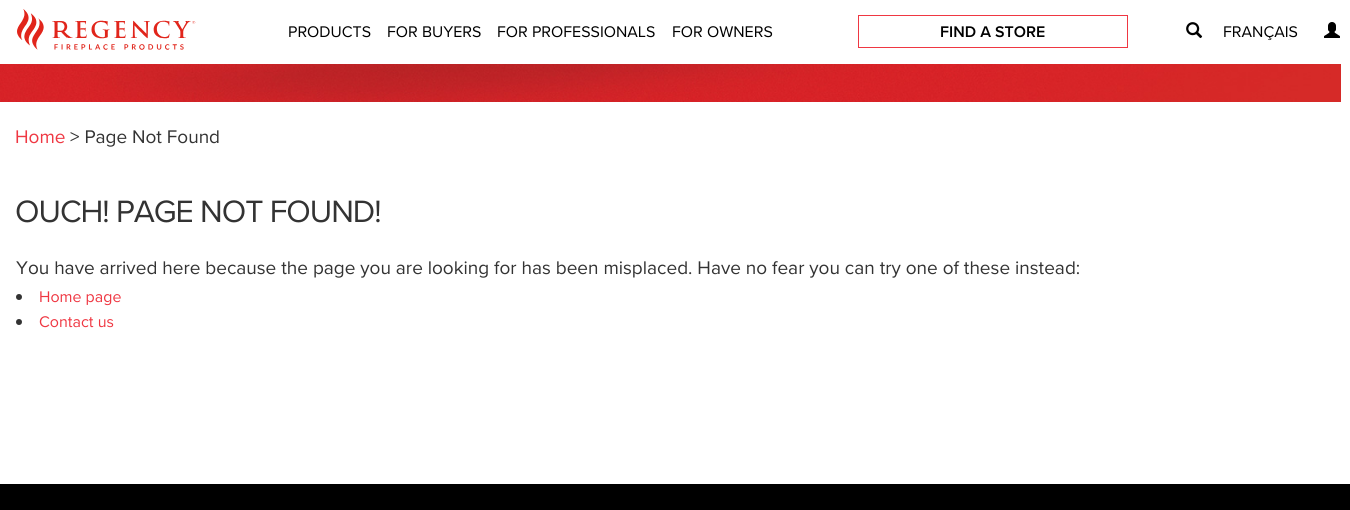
#include <cairo/cairo.h>
#include <math.h>
#include <stddef.h>

typedef struct { double x, y; const char *s; } line_t;
static cairo_t *cr;

static void rgb(unsigned color)
{
	cairo_set_source_rgb(cr, (color >> 16) / 255.0, (color >> 8 & 255) / 255.0, (color & 255) / 255.0);
}

static void tracked(double x, double y, const char *s, double letter, double word)
{
	cairo_move_to(cr, x, y);
	while (*s) {
		char ch[5] = {0};
		int n = 0;
		do ch[n++] = *s++; while ((*s & 0xC0) == 0x80);
		cairo_show_text(cr, ch);
		cairo_rel_move_to(cr, letter + word * (*ch == ' '), 0);
	}
}

static void image(const char *path, double x, double y, double w, double h)
{
	cairo_surface_t *image = cairo_image_surface_create_from_png(path);
	cairo_save(cr);
	cairo_set_source_surface(cr, image, x, y);
	cairo_rectangle(cr, x, y, w, h);
	cairo_fill(cr);
	cairo_restore(cr);
	cairo_surface_destroy(image);
}

int main(void) {
	cairo_surface_t *surface = cairo_image_surface_create(CAIRO_FORMAT_RGB24, 1350, 510);
	cr = cairo_create(surface);
	cairo_font_options_t *options = cairo_font_options_create();
	cairo_font_options_set_hint_metrics(options, CAIRO_HINT_METRICS_OFF);
	cairo_font_options_set_hint_style(options, CAIRO_HINT_STYLE_NONE);
	cairo_set_font_options(cr, options);
	cairo_set_miter_limit(cr, 4);
	rgb(0xffffff);
	cairo_paint(cr);
	image("img/1.png", 17, 9, 179, 41);
	cairo_rectangle(cr, 858.5, 15.5, 269, 32);
	rgb(0xef3742);
	cairo_set_line_width(cr, 1);
	cairo_stroke(cr);
	image("img/2.png", 1186, 22, 17, 17);
	image("img/3.png", 1324, 22, 16, 16);
	image("img/4.png", 0, 64, 1341, 38);
	rgb(0x333333);
	cairo_arc(cr, 19, 297, 3, 0, 2 * M_PI);
	cairo_fill(cr);
	cairo_arc(cr, 19, 322, 3, 0, 2 * M_PI);
	cairo_fill(cr);
	rgb(0x000000);
	cairo_rectangle(cr, 0, 484, 1350, 26);
	cairo_fill(cr);
	cairo_select_font_face(cr, "Proxima Nova", CAIRO_FONT_SLANT_NORMAL, CAIRO_FONT_WEIGHT_NORMAL);
	cairo_set_font_size(cr, 16);
	{
		static const line_t items[] = {
			{288, 37, "PRODUCTS"},
			{387, 37, "FOR BUYERS"},
			{497, 37, "FOR PROFESSIONALS"},
			{672, 37, "FOR OWNERS"},
		};
		for (size_t i = 0; i < sizeof items / sizeof *items; i++) {
			cairo_move_to(cr, items[i].x, items[i].y);
			cairo_show_text(cr, items[i].s);
		}
	}
	cairo_select_font_face(cr, "Proxima Nova SemiBold", CAIRO_FONT_SLANT_NORMAL, CAIRO_FONT_WEIGHT_NORMAL);
	cairo_move_to(cr, 940, 37);
	cairo_show_text(cr, "FIND A STORE");
	cairo_select_font_face(cr, "Proxima Nova", CAIRO_FONT_SLANT_NORMAL, CAIRO_FONT_WEIGHT_NORMAL);
	cairo_move_to(cr, 1223, 37);
	cairo_show_text(cr, "FRANÇAIS");
	cairo_set_font_size(cr, 19);
	rgb(0xef3742);
	cairo_move_to(cr, 15, 143);
	cairo_show_text(cr, "Home");
	rgb(0x333333);
	cairo_move_to(cr, 70, 143);
	cairo_show_text(cr, "> Page Not Found");
	cairo_set_font_size(cr, 32);
	tracked(15, 222, "OUCH! PAGE NOT FOUND!", -1, 0);
	cairo_set_font_size(cr, 19);
	cairo_move_to(cr, 16, 274);
	cairo_show_text(cr, "You have arrived here because the page you are looking for has been misplaced. Have no fear you can try one of these instead:");
	cairo_set_font_size(cr, 16);
	rgb(0xef3742);
	cairo_move_to(cr, 39, 302);
	cairo_show_text(cr, "Home page");
	cairo_move_to(cr, 39, 327);
	cairo_show_text(cr, "Contact us");
	cairo_surface_write_to_png(surface, "page.png");
	cairo_font_options_destroy(options);
	cairo_destroy(cr);
	cairo_surface_destroy(surface);
	return 0;
}
